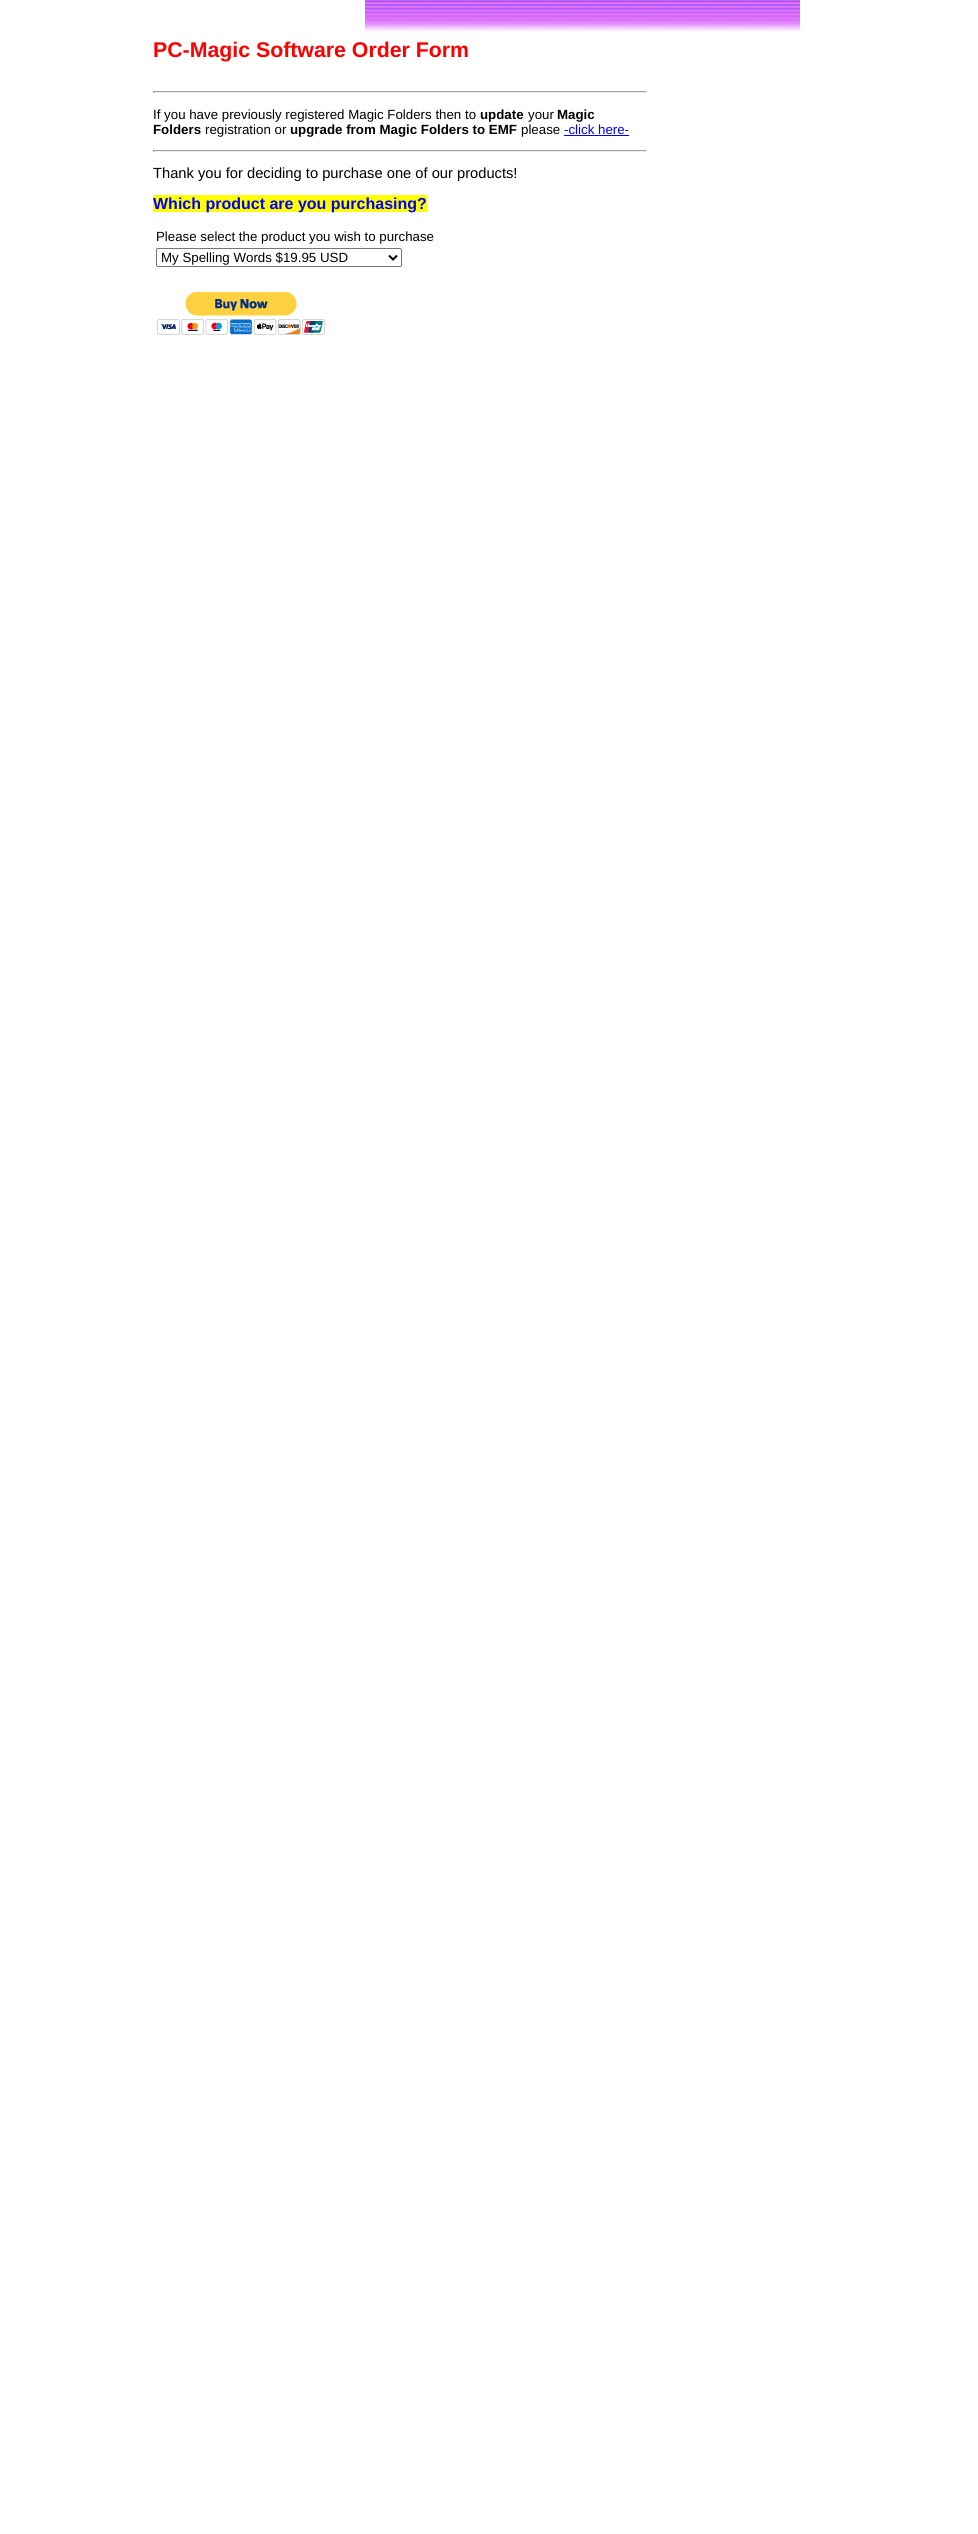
#include <cairo/cairo.h>
#include <math.h>
#include <stddef.h>

typedef struct { double x, y, w, h; unsigned color; } box_t;
static cairo_t *cr;

static void rgb(unsigned color)
{
	cairo_set_source_rgb(cr, (color >> 16) / 255.0, (color >> 8 & 255) / 255.0, (color & 255) / 255.0);
}

static void rrect(double x, double y, double w, double h, double r)
{
	cairo_new_sub_path(cr);
	cairo_arc(cr, x + w - r, y + h - r, r, 0, M_PI / 2);
	cairo_arc(cr, x + r, y + h - r, r, M_PI / 2, M_PI);
	cairo_arc(cr, x + r, y + r, r, M_PI, 1.5 * M_PI);
	cairo_arc(cr, x + w - r, y + r, r, 1.5 * M_PI, 2 * M_PI);
	cairo_close_path(cr);
}

static void image(const char *path, double x, double y, double w, double h)
{
	cairo_surface_t *image = cairo_image_surface_create_from_png(path);
	cairo_save(cr);
	cairo_set_source_surface(cr, image, x, y);
	cairo_rectangle(cr, x, y, w, h);
	cairo_fill(cr);
	cairo_restore(cr);
	cairo_surface_destroy(image);
}

int main(void) {
	cairo_surface_t *surface = cairo_image_surface_create(CAIRO_FORMAT_RGB24, 978, 2534);
	cr = cairo_create(surface);
	cairo_font_options_t *options = cairo_font_options_create();
	cairo_font_options_set_hint_metrics(options, CAIRO_HINT_METRICS_OFF);
	cairo_font_options_set_hint_style(options, CAIRO_HINT_STYLE_NONE);
	cairo_set_font_options(cr, options);
	cairo_set_miter_limit(cr, 4);
	rgb(0xffffff);
	cairo_paint(cr);
	image("img/1.png", 365, 0, 435, 33);
	{
		static const box_t items[] = {
			{153, 91, 494, 1, 0x9f9f9f},
			{646, 91, 1, 2, 0xeeeeee},
			{153, 92, 494, 1, 0xeeeeee},
			{153, 91, 1, 2, 0x9f9f9f},
			{564, 135, 65, 1, 0x0000ee},
			{153, 150, 494, 1, 0x9f9f9f},
			{646, 150, 1, 2, 0xeeeeee},
			{153, 151, 494, 1, 0xeeeeee},
			{153, 150, 1, 2, 0x9f9f9f},
			{153, 195, 274, 17, 0xffff00},
		};
		for (size_t i = 0; i < sizeof items / sizeof *items; i++) {
			rgb(items[i].color);
			cairo_rectangle(cr, items[i].x, items[i].y, items[i].w, items[i].h);
			cairo_fill(cr);
		}
	}
	rrect(156.5, 248.5, 245, 18, 1.5);
	rgb(0x767676);
	cairo_set_line_width(cr, 1);
	cairo_stroke(cr);
	cairo_new_path(cr);
	cairo_move_to(cr, 389, 255.5);
	cairo_line_to(cr, 393, 259.5);
	cairo_line_to(cr, 397, 255.5);
	rgb(0x000000);
	cairo_set_line_width(cr, 2);
	cairo_stroke(cr);
	image("img/2.png", 157, 292, 168, 43);
	cairo_select_font_face(cr, "Liberation Sans", CAIRO_FONT_SLANT_NORMAL, CAIRO_FONT_WEIGHT_BOLD);
	cairo_set_font_size(cr, 21.3);
	rgb(0xff0000);
	cairo_move_to(cr, 153, 57);
	cairo_show_text(cr, "PC-Magic Software Order Form");
	cairo_select_font_face(cr, "Liberation Sans", CAIRO_FONT_SLANT_NORMAL, CAIRO_FONT_WEIGHT_NORMAL);
	cairo_set_font_size(cr, 13.3);
	rgb(0x000000);
	cairo_move_to(cr, 153, 119);
	cairo_show_text(cr, "If you have previously registered Magic Folders then to");
	cairo_select_font_face(cr, "Liberation Sans", CAIRO_FONT_SLANT_NORMAL, CAIRO_FONT_WEIGHT_BOLD);
	cairo_move_to(cr, 480, 119);
	cairo_show_text(cr, "update");
	cairo_select_font_face(cr, "Liberation Sans", CAIRO_FONT_SLANT_NORMAL, CAIRO_FONT_WEIGHT_NORMAL);
	cairo_move_to(cr, 528, 119);
	cairo_show_text(cr, "your");
	cairo_select_font_face(cr, "Liberation Sans", CAIRO_FONT_SLANT_NORMAL, CAIRO_FONT_WEIGHT_BOLD);
	cairo_move_to(cr, 557, 119);
	cairo_show_text(cr, "Magic");
	cairo_move_to(cr, 153, 134);
	cairo_show_text(cr, "Folders");
	cairo_select_font_face(cr, "Liberation Sans", CAIRO_FONT_SLANT_NORMAL, CAIRO_FONT_WEIGHT_NORMAL);
	cairo_move_to(cr, 205, 134);
	cairo_show_text(cr, "registration or");
	cairo_select_font_face(cr, "Liberation Sans", CAIRO_FONT_SLANT_NORMAL, CAIRO_FONT_WEIGHT_BOLD);
	cairo_move_to(cr, 290, 134);
	cairo_show_text(cr, "upgrade from Magic Folders to EMF");
	cairo_select_font_face(cr, "Liberation Sans", CAIRO_FONT_SLANT_NORMAL, CAIRO_FONT_WEIGHT_NORMAL);
	cairo_move_to(cr, 521, 134);
	cairo_show_text(cr, "please");
	rgb(0x0000ee);
	cairo_move_to(cr, 564, 134);
	cairo_show_text(cr, "-click here-");
	cairo_set_font_size(cr, 14.7);
	rgb(0x000000);
	cairo_move_to(cr, 153, 178);
	cairo_show_text(cr, "Thank you for deciding to purchase one of our products!");
	cairo_select_font_face(cr, "Liberation Sans", CAIRO_FONT_SLANT_NORMAL, CAIRO_FONT_WEIGHT_BOLD);
	cairo_set_font_size(cr, 16);
	rgb(0x0000ff);
	cairo_move_to(cr, 153, 209);
	cairo_show_text(cr, "Which product are you purchasing?");
	cairo_select_font_face(cr, "Liberation Sans", CAIRO_FONT_SLANT_NORMAL, CAIRO_FONT_WEIGHT_NORMAL);
	cairo_set_font_size(cr, 13.3);
	rgb(0x000000);
	cairo_move_to(cr, 156, 241);
	cairo_show_text(cr, "Please select the product you wish to purchase");
	cairo_move_to(cr, 161, 262);
	cairo_show_text(cr, "My Spelling Words $19.95 USD");
	cairo_surface_write_to_png(surface, "page.png");
	cairo_font_options_destroy(options);
	cairo_destroy(cr);
	cairo_surface_destroy(surface);
	return 0;
}
